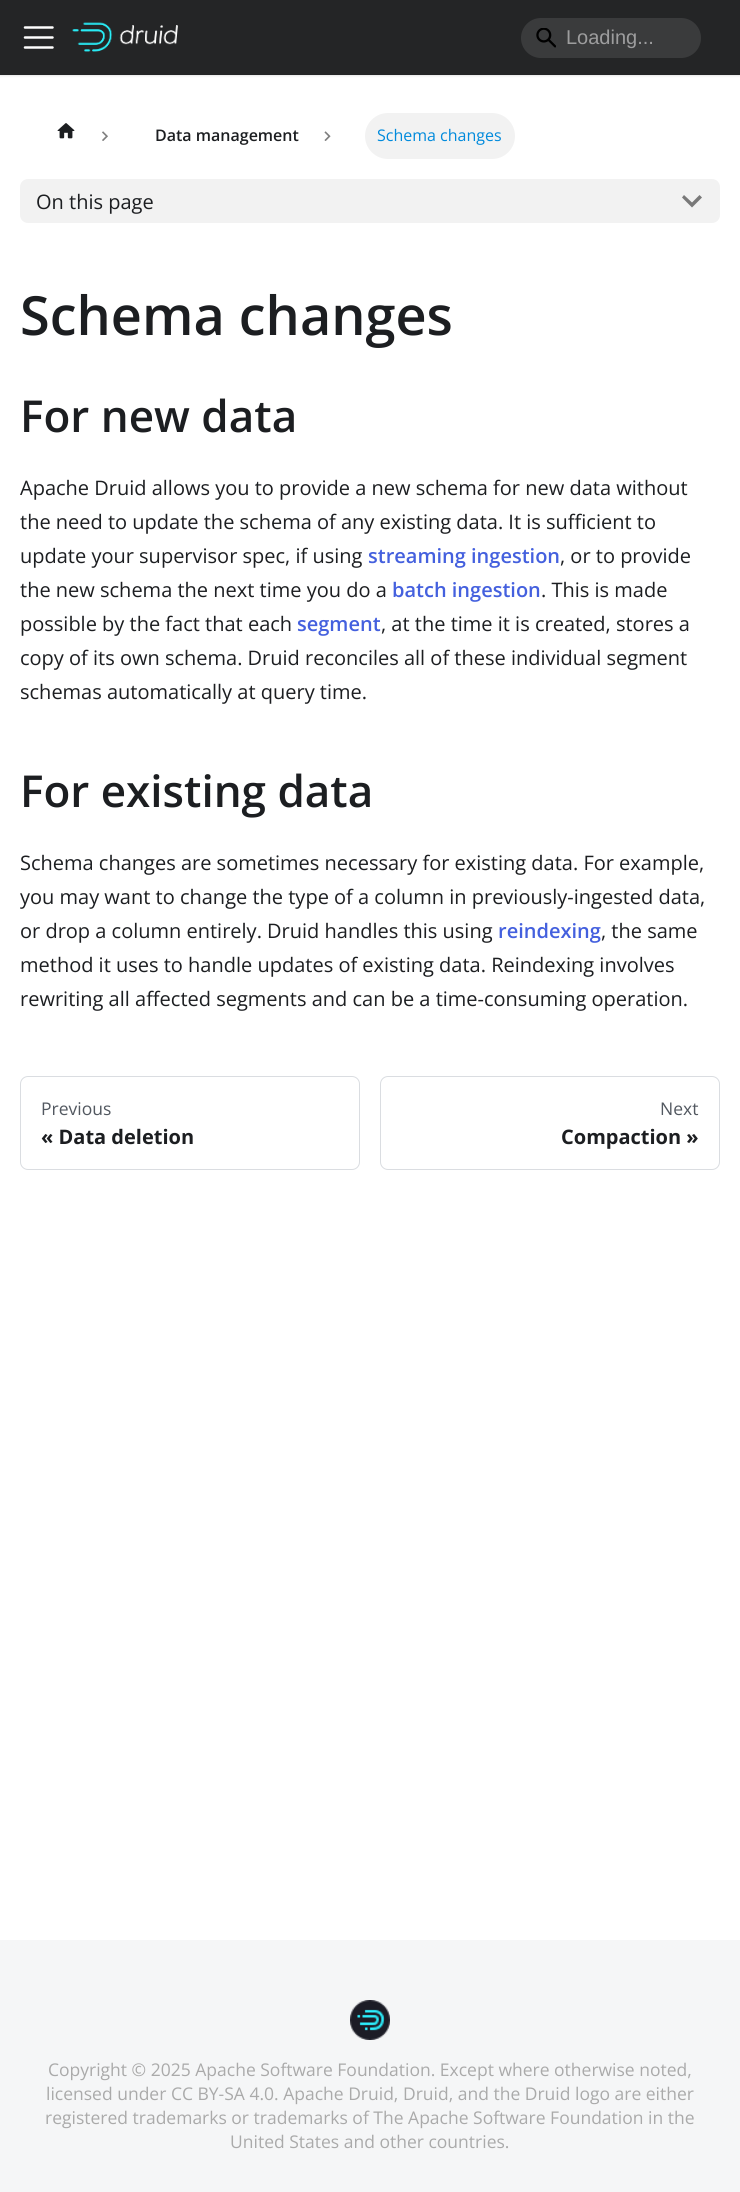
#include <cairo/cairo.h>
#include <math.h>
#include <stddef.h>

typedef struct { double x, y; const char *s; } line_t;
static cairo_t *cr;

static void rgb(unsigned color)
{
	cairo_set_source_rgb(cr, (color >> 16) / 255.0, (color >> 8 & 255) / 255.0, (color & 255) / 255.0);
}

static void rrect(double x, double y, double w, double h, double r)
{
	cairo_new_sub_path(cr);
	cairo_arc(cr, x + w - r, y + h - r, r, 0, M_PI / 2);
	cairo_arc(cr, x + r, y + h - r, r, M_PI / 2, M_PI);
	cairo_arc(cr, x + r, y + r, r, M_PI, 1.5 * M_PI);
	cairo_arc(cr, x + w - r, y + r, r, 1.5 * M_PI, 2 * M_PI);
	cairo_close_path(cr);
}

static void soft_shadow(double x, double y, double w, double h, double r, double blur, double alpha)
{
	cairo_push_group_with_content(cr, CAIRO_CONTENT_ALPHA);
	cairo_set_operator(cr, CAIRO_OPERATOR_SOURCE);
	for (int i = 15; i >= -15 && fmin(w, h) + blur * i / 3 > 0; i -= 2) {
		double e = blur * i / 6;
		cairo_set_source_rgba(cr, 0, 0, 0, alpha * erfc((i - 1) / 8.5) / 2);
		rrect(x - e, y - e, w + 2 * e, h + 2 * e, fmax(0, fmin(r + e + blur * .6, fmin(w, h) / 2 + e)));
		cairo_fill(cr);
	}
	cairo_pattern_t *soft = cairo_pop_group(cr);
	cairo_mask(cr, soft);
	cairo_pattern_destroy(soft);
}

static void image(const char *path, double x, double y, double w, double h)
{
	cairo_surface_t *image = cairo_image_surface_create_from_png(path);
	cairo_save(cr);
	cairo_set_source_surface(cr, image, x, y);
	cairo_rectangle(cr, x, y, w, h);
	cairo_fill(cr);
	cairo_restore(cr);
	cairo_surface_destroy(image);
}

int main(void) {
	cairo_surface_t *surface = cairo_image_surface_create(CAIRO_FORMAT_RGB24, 740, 2192);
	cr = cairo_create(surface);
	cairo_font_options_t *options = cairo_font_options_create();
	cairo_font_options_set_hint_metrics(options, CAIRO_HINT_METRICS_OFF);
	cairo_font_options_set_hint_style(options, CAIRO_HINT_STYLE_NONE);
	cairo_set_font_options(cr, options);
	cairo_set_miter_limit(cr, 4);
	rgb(0xffffff);
	cairo_paint(cr);
	rgb(0x000000);
	soft_shadow(0, 1, 740, 75, 0, 1, 0.1);
	rgb(0x242526);
	cairo_rectangle(cr, 0, 0, 740, 75);
	cairo_fill(cr);
	cairo_new_path(cr);
	cairo_move_to(cr, 25, 27.5);
	cairo_line_to(cr, 52.5, 27.5);
	cairo_move_to(cr, 25, 37.5);
	cairo_line_to(cr, 52.5, 37.5);
	cairo_move_to(cr, 25, 47.5);
	cairo_line_to(cr, 52.5, 47.5);
	rgb(0xffffff);
	cairo_set_line_width(cr, 2.5);
	cairo_set_line_cap(cr, CAIRO_LINE_CAP_ROUND);
	cairo_stroke(cr);
	image("img/1.png", 72, 22, 106, 30);
	rgb(0x3a3b3c);
	rrect(521, 18, 180, 40, 20);
	cairo_fill(cr);
	image("img/2.png", 536, 28, 20, 20);
	image("img/3.png", 57, 123, 18, 16);
	image("img/4.png", 102, 131, 6, 10);
	image("img/5.png", 324, 131, 7, 10);
	rgb(0xf2f2f2);
	rrect(365, 113, 150, 46, 23);
	cairo_fill(cr);
	rrect(20, 179, 700, 44, 8);
	cairo_fill(cr);
	rgb(0x797979);
	cairo_new_path(cr);
	cairo_move_to(cr, 699.5, 195);
	cairo_line_to(cr, 692, 202.5);
	cairo_line_to(cr, 684, 195);
	cairo_line_to(cr, 682, 197.5);
	cairo_line_to(cr, 692, 207.5);
	cairo_line_to(cr, 702, 197.5);
	cairo_close_path(cr);
	cairo_fill(cr);
	rrect(20.5, 1076.5, 339, 93, 7.5);
	rgb(0xdadde1);
	cairo_set_line_width(cr, 1);
	cairo_set_line_cap(cr, CAIRO_LINE_CAP_BUTT);
	cairo_stroke(cr);
	rrect(380.5, 1076.5, 339, 93, 7.5);
	cairo_stroke(cr);
	rgb(0xf5f6f7);
	cairo_rectangle(cr, 0, 1940, 740, 252);
	cairo_fill(cr);
	image("img/6.png", 350, 2000, 40, 40);
	cairo_select_font_face(cr, "Liberation Sans", CAIRO_FONT_SLANT_NORMAL, CAIRO_FONT_WEIGHT_NORMAL);
	cairo_set_font_size(cr, 20);
	rgb(0x9d9d9e);
	cairo_move_to(cr, 566, 44);
	cairo_show_text(cr, "Loading...");
	cairo_select_font_face(cr, "Open Sans SemiBold", CAIRO_FONT_SLANT_NORMAL, CAIRO_FONT_WEIGHT_NORMAL);
	cairo_set_font_size(cr, 16);
	rgb(0x1c1e21);
	cairo_move_to(cr, 155, 141);
	cairo_show_text(cr, "Data management");
	cairo_select_font_face(cr, "Open Sans", CAIRO_FONT_SLANT_NORMAL, CAIRO_FONT_WEIGHT_NORMAL);
	rgb(0x008adc);
	cairo_move_to(cr, 377, 141);
	cairo_show_text(cr, "Schema changes");
	cairo_set_font_size(cr, 20);
	rgb(0x1c1e21);
	cairo_move_to(cr, 36, 209);
	cairo_show_text(cr, "On this page");
	cairo_select_font_face(cr, "Open Sans SemiBold", CAIRO_FONT_SLANT_NORMAL, CAIRO_FONT_WEIGHT_NORMAL);
	cairo_set_font_size(cr, 54);
	cairo_move_to(cr, 20, 335);
	cairo_show_text(cr, "Schema changes");
	cairo_set_font_size(cr, 44);
	cairo_move_to(cr, 20, 432);
	cairo_show_text(cr, "For new data");
	cairo_select_font_face(cr, "Open Sans", CAIRO_FONT_SLANT_NORMAL, CAIRO_FONT_WEIGHT_NORMAL);
	cairo_set_font_size(cr, 20);
	{
		static const line_t items[] = {
			{20, 495, "Apache Druid allows you to provide a new schema for new data without"},
			{20, 529, "the need to update the schema of any existing data. It is sufficient to"},
			{20, 563, "update your supervisor spec, if using"},
		};
		for (size_t i = 0; i < sizeof items / sizeof *items; i++) {
			cairo_move_to(cr, items[i].x, items[i].y);
			cairo_show_text(cr, items[i].s);
		}
	}
	cairo_select_font_face(cr, "Open Sans SemiBold", CAIRO_FONT_SLANT_NORMAL, CAIRO_FONT_WEIGHT_NORMAL);
	rgb(0x4460de);
	cairo_move_to(cr, 368, 563);
	cairo_show_text(cr, "streaming ingestion");
	cairo_select_font_face(cr, "Open Sans", CAIRO_FONT_SLANT_NORMAL, CAIRO_FONT_WEIGHT_NORMAL);
	rgb(0x1c1e21);
	cairo_move_to(cr, 560, 563);
	cairo_show_text(cr, ", or to provide");
	cairo_move_to(cr, 20, 597);
	cairo_show_text(cr, "the new schema the next time you do a");
	cairo_select_font_face(cr, "Open Sans SemiBold", CAIRO_FONT_SLANT_NORMAL, CAIRO_FONT_WEIGHT_NORMAL);
	rgb(0x4460de);
	cairo_move_to(cr, 392, 597);
	cairo_show_text(cr, "batch ingestion");
	cairo_select_font_face(cr, "Open Sans", CAIRO_FONT_SLANT_NORMAL, CAIRO_FONT_WEIGHT_NORMAL);
	rgb(0x1c1e21);
	cairo_move_to(cr, 541, 597);
	cairo_show_text(cr, ". This is made");
	cairo_move_to(cr, 20, 631);
	cairo_show_text(cr, "possible by the fact that each");
	cairo_select_font_face(cr, "Open Sans SemiBold", CAIRO_FONT_SLANT_NORMAL, CAIRO_FONT_WEIGHT_NORMAL);
	rgb(0x4460de);
	cairo_move_to(cr, 297, 631);
	cairo_show_text(cr, "segment");
	cairo_select_font_face(cr, "Open Sans", CAIRO_FONT_SLANT_NORMAL, CAIRO_FONT_WEIGHT_NORMAL);
	rgb(0x1c1e21);
	{
		static const line_t items[] = {
			{381, 631, ", at the time it is created, stores a"},
			{20, 665, "copy of its own schema. Druid reconciles all of these individual segment"},
			{20, 699, "schemas automatically at query time."},
		};
		for (size_t i = 0; i < sizeof items / sizeof *items; i++) {
			cairo_move_to(cr, items[i].x, items[i].y);
			cairo_show_text(cr, items[i].s);
		}
	}
	cairo_select_font_face(cr, "Open Sans SemiBold", CAIRO_FONT_SLANT_NORMAL, CAIRO_FONT_WEIGHT_NORMAL);
	cairo_set_font_size(cr, 44);
	cairo_move_to(cr, 20, 807);
	cairo_show_text(cr, "For existing data");
	cairo_select_font_face(cr, "Open Sans", CAIRO_FONT_SLANT_NORMAL, CAIRO_FONT_WEIGHT_NORMAL);
	cairo_set_font_size(cr, 20);
	{
		static const line_t items[] = {
			{20, 870, "Schema changes are sometimes necessary for existing data. For example,"},
			{20, 904, "you may want to change the type of a column in previously-ingested data,"},
			{20, 938, "or drop a column entirely. Druid handles this using"},
		};
		for (size_t i = 0; i < sizeof items / sizeof *items; i++) {
			cairo_move_to(cr, items[i].x, items[i].y);
			cairo_show_text(cr, items[i].s);
		}
	}
	cairo_select_font_face(cr, "Open Sans SemiBold", CAIRO_FONT_SLANT_NORMAL, CAIRO_FONT_WEIGHT_NORMAL);
	rgb(0x4460de);
	cairo_move_to(cr, 498, 938);
	cairo_show_text(cr, "reindexing");
	cairo_select_font_face(cr, "Open Sans", CAIRO_FONT_SLANT_NORMAL, CAIRO_FONT_WEIGHT_NORMAL);
	rgb(0x1c1e21);
	{
		static const line_t items[] = {
			{601, 938, ", the same"},
			{20, 972, "method it uses to handle updates of existing data. Reindexing involves"},
			{20, 1006, "rewriting all affected segments and can be a time-consuming operation."},
		};
		for (size_t i = 0; i < sizeof items / sizeof *items; i++) {
			cairo_move_to(cr, items[i].x, items[i].y);
			cairo_show_text(cr, items[i].s);
		}
	}
	cairo_set_font_size(cr, 17.5);
	rgb(0x525860);
	cairo_move_to(cr, 41, 1115);
	cairo_show_text(cr, "Previous");
	cairo_select_font_face(cr, "Open Sans", CAIRO_FONT_SLANT_NORMAL, CAIRO_FONT_WEIGHT_BOLD);
	cairo_set_font_size(cr, 20);
	rgb(0x1c1e21);
	cairo_move_to(cr, 41, 1144);
	cairo_show_text(cr, "« Data deletion");
	cairo_select_font_face(cr, "Open Sans", CAIRO_FONT_SLANT_NORMAL, CAIRO_FONT_WEIGHT_NORMAL);
	cairo_set_font_size(cr, 17.5);
	rgb(0x525860);
	cairo_move_to(cr, 660, 1115);
	cairo_show_text(cr, "Next");
	cairo_select_font_face(cr, "Open Sans", CAIRO_FONT_SLANT_NORMAL, CAIRO_FONT_WEIGHT_BOLD);
	cairo_set_font_size(cr, 20);
	rgb(0x1c1e21);
	cairo_move_to(cr, 561, 1144);
	cairo_show_text(cr, "Compaction »");
	cairo_select_font_face(cr, "Open Sans", CAIRO_FONT_SLANT_NORMAL, CAIRO_FONT_WEIGHT_NORMAL);
	cairo_set_font_size(cr, 17.5);
	rgb(0xaaaaaa);
	{
		static const line_t items[] = {
			{48, 2076, "Copyright © 2025 Apache Software Foundation. Except where otherwise noted,"},
			{46, 2100, "licensed under CC BY-SA 4.0. Apache Druid, Druid, and the Druid logo are either"},
			{45, 2124, "registered trademarks or trademarks of The Apache Software Foundation in the"},
			{230, 2148, "United States and other countries."},
		};
		for (size_t i = 0; i < sizeof items / sizeof *items; i++) {
			cairo_move_to(cr, items[i].x, items[i].y);
			cairo_show_text(cr, items[i].s);
		}
	}
	cairo_surface_write_to_png(surface, "page.png");
	cairo_font_options_destroy(options);
	cairo_destroy(cr);
	cairo_surface_destroy(surface);
	return 0;
}
